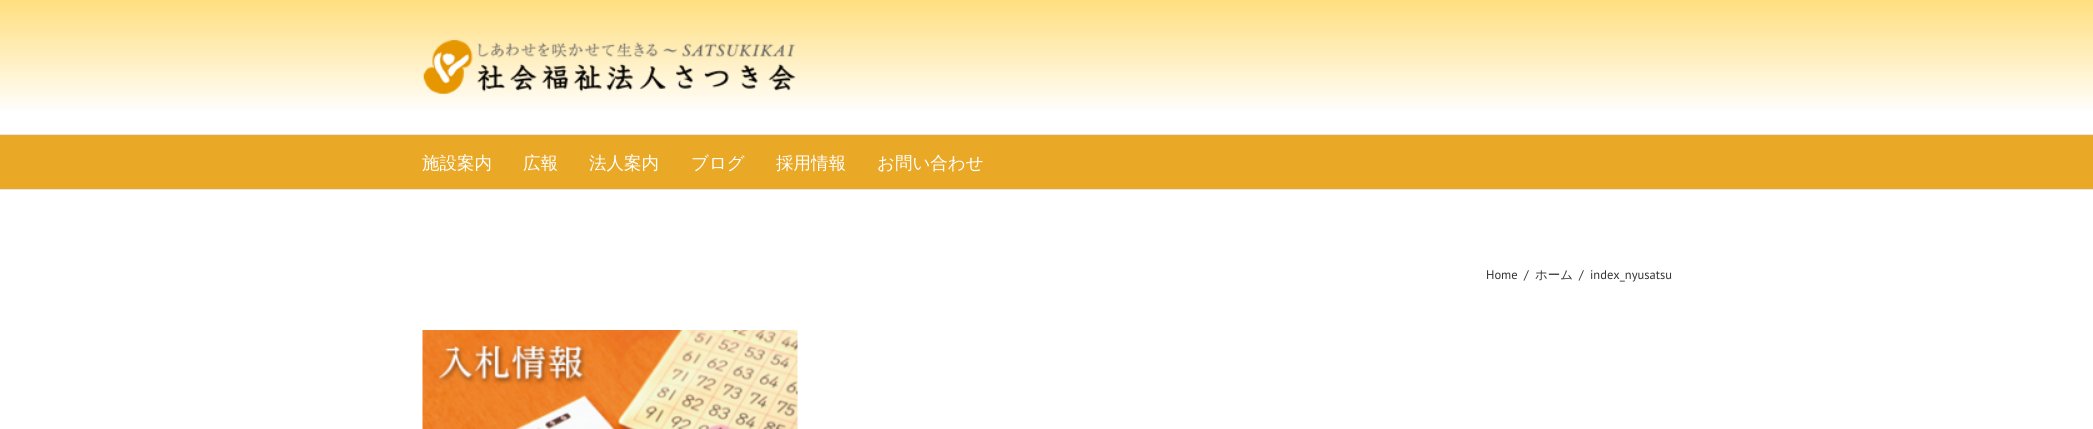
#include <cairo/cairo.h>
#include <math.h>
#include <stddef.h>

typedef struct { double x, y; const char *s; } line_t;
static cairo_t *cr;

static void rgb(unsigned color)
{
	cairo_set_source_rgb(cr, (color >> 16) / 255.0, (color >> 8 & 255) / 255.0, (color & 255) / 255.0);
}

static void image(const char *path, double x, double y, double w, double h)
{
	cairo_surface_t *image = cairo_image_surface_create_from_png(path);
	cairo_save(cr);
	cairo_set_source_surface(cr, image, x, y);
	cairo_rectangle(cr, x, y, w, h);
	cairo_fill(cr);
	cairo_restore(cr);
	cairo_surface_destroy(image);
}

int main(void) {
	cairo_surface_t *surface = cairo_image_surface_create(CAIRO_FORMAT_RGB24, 2093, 429);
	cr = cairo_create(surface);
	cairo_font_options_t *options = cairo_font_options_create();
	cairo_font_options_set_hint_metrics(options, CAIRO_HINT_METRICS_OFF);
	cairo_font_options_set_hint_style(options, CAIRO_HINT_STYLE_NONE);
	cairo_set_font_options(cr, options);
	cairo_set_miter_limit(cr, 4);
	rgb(0xffffff);
	cairo_paint(cr);
	image("img/1.png", 0, 0, 2093, 110);
	rgb(0xe5e5e5);
	cairo_rectangle(cr, 0, 134, 2093, 1);
	cairo_fill(cr);
	image("img/2.png", 423, 39, 373, 55);
	rgb(0xe9a825);
	cairo_rectangle(cr, 0, 135, 2093, 54);
	cairo_fill(cr);
	rgb(0xe5e5e5);
	cairo_rectangle(cr, 0, 189, 2093, 1);
	cairo_fill(cr);
	image("img/3.png", 422, 330, 376, 99);
	cairo_select_font_face(cr, "WenQuanYi Zen Hei Medium", CAIRO_FONT_SLANT_NORMAL, CAIRO_FONT_WEIGHT_NORMAL);
	cairo_set_font_size(cr, 17.5);
	rgb(0xffffff);
	{
		static const line_t items[] = {
			{422, 169, "施設案内"},
			{523, 169, "広報"},
			{589, 169, "法人案内"},
			{691, 169, "ブログ"},
			{776, 169, "採用情報"},
			{877, 169, "お問い合わせ"},
		};
		for (size_t i = 0; i < sizeof items / sizeof *items; i++) {
			cairo_move_to(cr, items[i].x, items[i].y);
			cairo_show_text(cr, items[i].s);
		}
	}
	cairo_select_font_face(cr, "PT Sans", CAIRO_FONT_SLANT_NORMAL, CAIRO_FONT_WEIGHT_NORMAL);
	cairo_set_font_size(cr, 12.5);
	rgb(0x333333);
	cairo_move_to(cr, 1486, 279);
	cairo_show_text(cr, "Home");
	cairo_move_to(cr, 1524, 279);
	cairo_show_text(cr, "/");
	cairo_select_font_face(cr, "WenQuanYi Zen Hei Medium", CAIRO_FONT_SLANT_NORMAL, CAIRO_FONT_WEIGHT_NORMAL);
	cairo_move_to(cr, 1535, 279);
	cairo_show_text(cr, "ホーム");
	cairo_select_font_face(cr, "PT Sans", CAIRO_FONT_SLANT_NORMAL, CAIRO_FONT_WEIGHT_NORMAL);
	cairo_move_to(cr, 1579, 279);
	cairo_show_text(cr, "/");
	cairo_move_to(cr, 1590, 279);
	cairo_show_text(cr, "index_nyusatsu");
	cairo_surface_write_to_png(surface, "page.png");
	cairo_font_options_destroy(options);
	cairo_destroy(cr);
	cairo_surface_destroy(surface);
	return 0;
}
